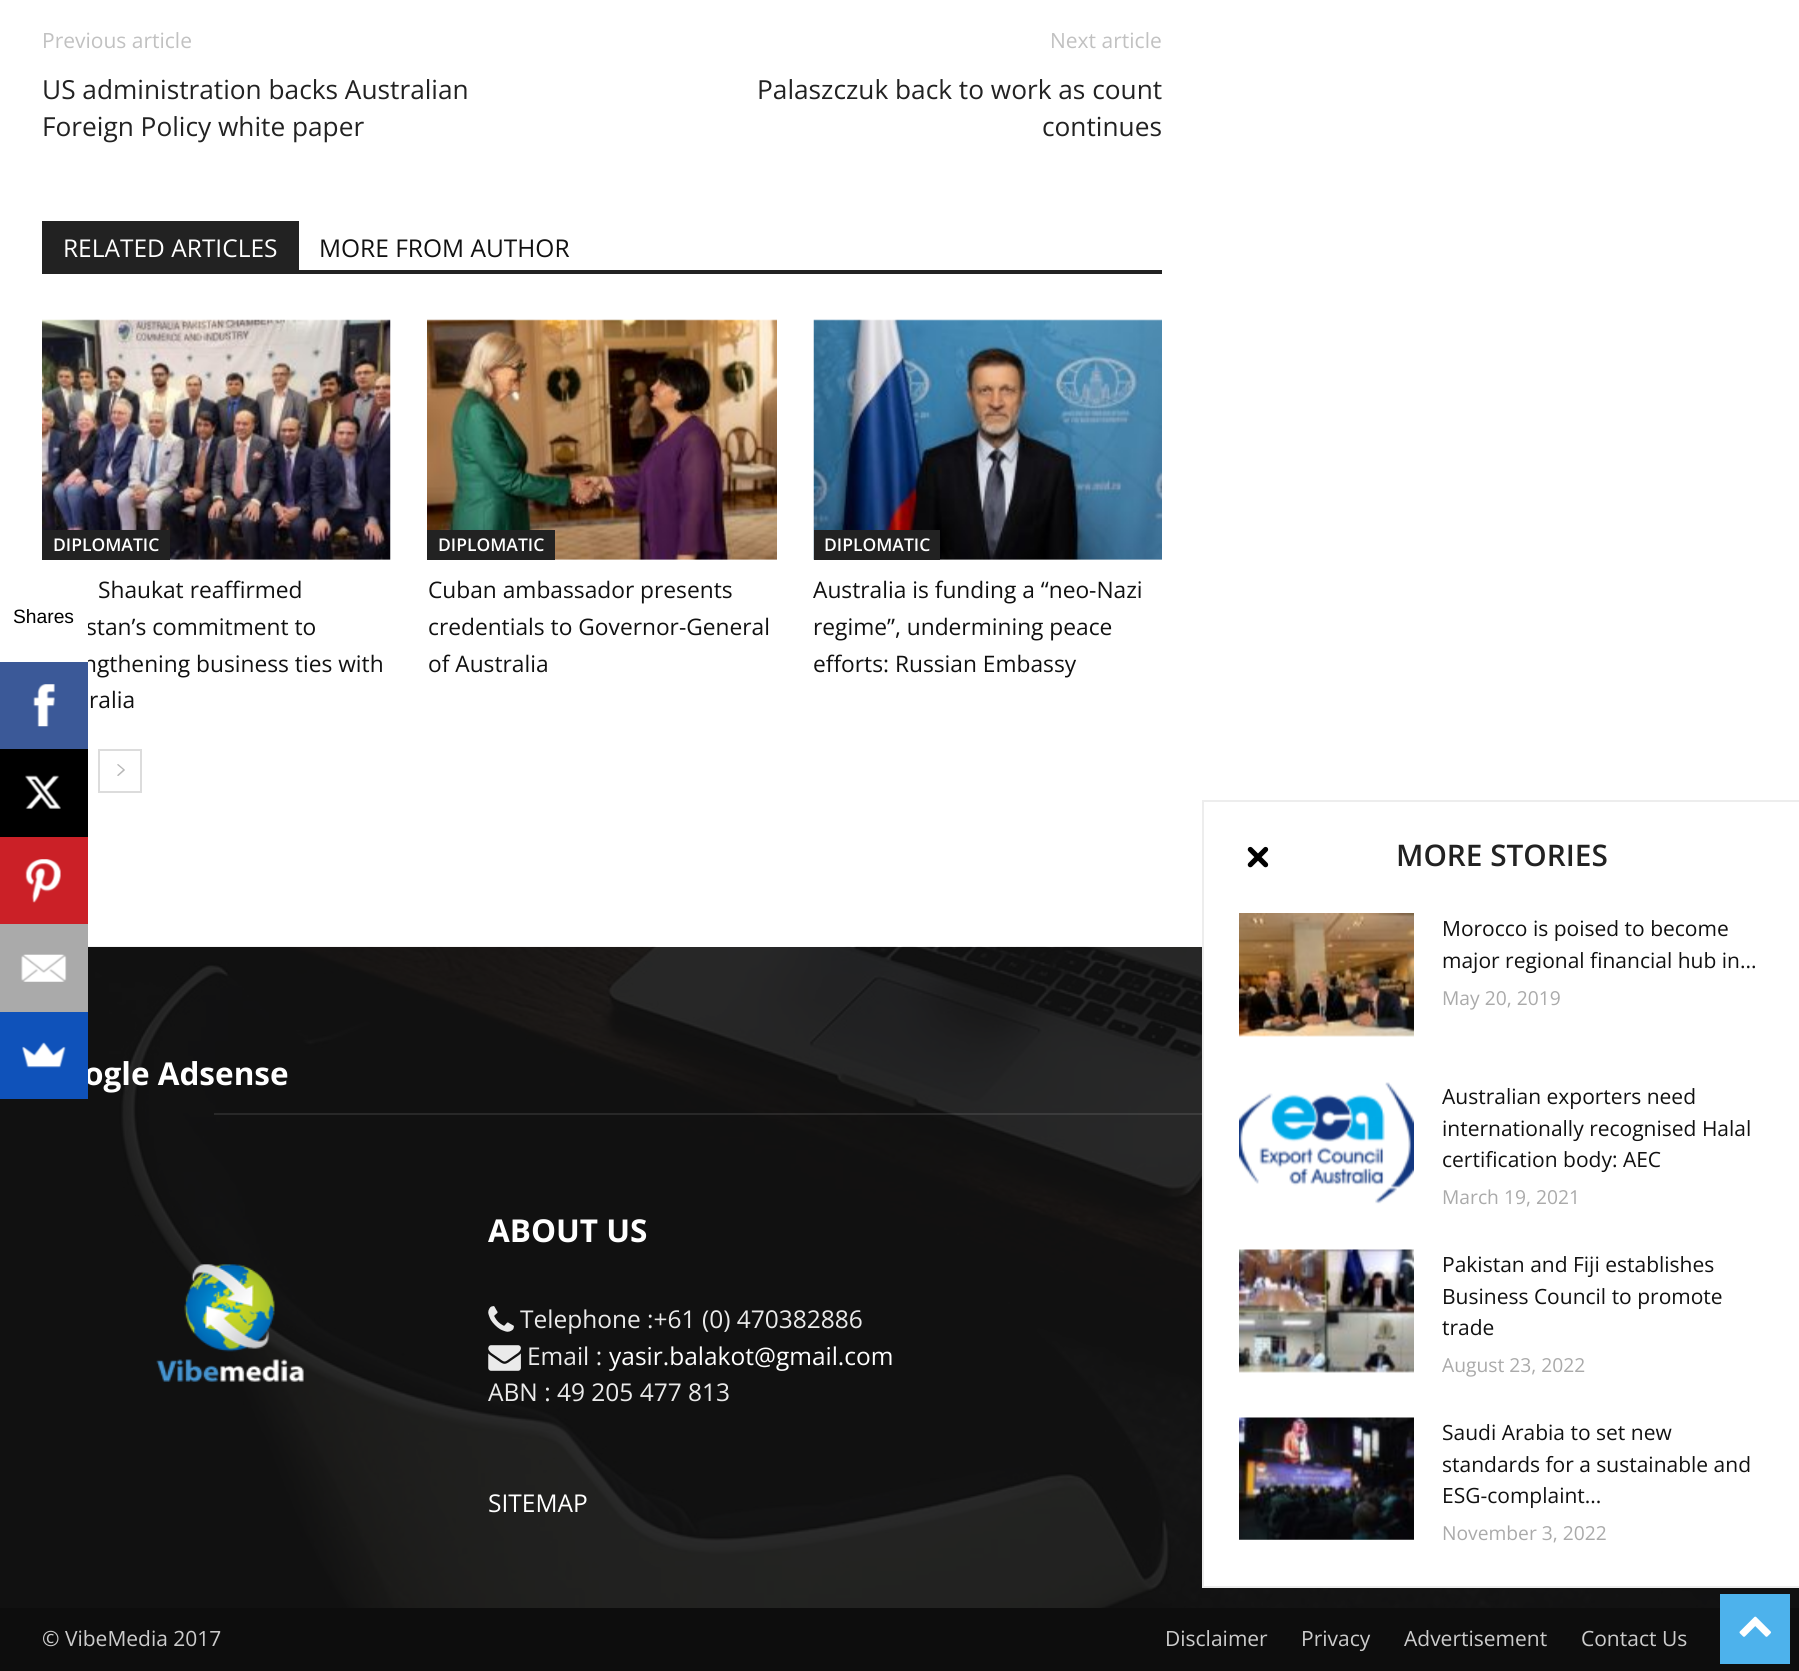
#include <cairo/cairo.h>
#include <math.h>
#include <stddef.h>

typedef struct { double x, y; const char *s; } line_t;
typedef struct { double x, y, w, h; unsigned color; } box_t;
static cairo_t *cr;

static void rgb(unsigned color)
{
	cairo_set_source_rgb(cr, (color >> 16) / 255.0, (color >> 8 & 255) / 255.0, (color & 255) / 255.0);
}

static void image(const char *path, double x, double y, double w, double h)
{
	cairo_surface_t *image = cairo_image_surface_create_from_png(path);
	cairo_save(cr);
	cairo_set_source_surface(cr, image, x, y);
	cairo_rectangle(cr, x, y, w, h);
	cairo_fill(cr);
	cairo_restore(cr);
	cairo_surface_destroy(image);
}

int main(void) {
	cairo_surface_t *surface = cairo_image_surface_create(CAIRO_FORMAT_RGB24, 1799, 1671);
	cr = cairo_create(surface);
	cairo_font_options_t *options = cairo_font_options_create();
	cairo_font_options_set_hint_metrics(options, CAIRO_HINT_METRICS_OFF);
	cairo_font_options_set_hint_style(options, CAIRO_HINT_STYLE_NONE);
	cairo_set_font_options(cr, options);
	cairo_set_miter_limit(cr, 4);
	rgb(0xffffff);
	cairo_paint(cr);
	rgb(0x222222);
	cairo_rectangle(cr, 42, 270, 1120, 4);
	cairo_fill(cr);
	cairo_rectangle(cr, 42, 221, 257, 49);
	cairo_fill(cr);
	image("img/1.png", 42, 319, 349, 241);
	cairo_rectangle(cr, 42, 530, 128, 30);
	cairo_fill(cr);
	image("img/2.png", 427, 319, 350, 241);
	cairo_rectangle(cr, 427, 530, 128, 30);
	cairo_fill(cr);
	image("img/3.png", 813, 319, 349, 241);
	cairo_rectangle(cr, 814, 530, 126, 30);
	cairo_fill(cr);
	cairo_rectangle(cr, 99, 750, 42, 42);
	rgb(0xdcdcdc);
	cairo_stroke(cr);
	image("img/4.png", 117, 764, 8, 12);
	rgb(0x111111);
	cairo_rectangle(cr, 0, 947, 1799, 661);
	cairo_fill(cr);
	image("img/5.png", 0, 946, 1799, 662);
	cairo_set_source_rgba(cr, 1, 1, 1, 0.1);
	cairo_rectangle(cr, 214, 1113, 988, 2);
	cairo_fill(cr);
	image("img/6.png", 156, 1264, 148, 118);
	image("img/7.png", 488, 1306, 26, 26);
	image("img/8.png", 488, 1345, 33, 26);
	rgb(0x0d0d0d);
	cairo_rectangle(cr, 0, 1608, 1799, 63);
	cairo_fill(cr);
	rgb(0x000000);
	cairo_rectangle(cr, 0, 749, 88, 88);
	cairo_fill(cr);
	image("img/10.png", 25, 775, 36, 34);
	rgb(0xcb2027);
	cairo_rectangle(cr, 0, 837, 88, 87);
	cairo_fill(cr);
	image("img/11.png", 25, 859, 36, 44);
	rgb(0xaaaaaa);
	cairo_rectangle(cr, 0, 924, 88, 88);
	cairo_fill(cr);
	image("img/12.png", 21, 954, 46, 28);
	{
		static const box_t items[] = {
			{1204, 946, 595, 640, 0xffffff},
			{1202, 800, 597, 2, 0xededed},
			{1202, 1586, 597, 2, 0xededed},
			{1202, 800, 2, 787, 0xededed},
		};
		for (size_t i = 0; i < sizeof items / sizeof *items; i++) {
			rgb(items[i].color);
			cairo_rectangle(cr, items[i].x, items[i].y, items[i].w, items[i].h);
			cairo_fill(cr);
		}
	}
	image("img/14.png", 1247, 846, 22, 22);
	image("img/15.png", 1239, 913, 175, 124);
	image("img/16.png", 1239, 1082, 175, 122);
	image("img/17.png", 1239, 1249, 175, 124);
	image("img/18.png", 1239, 1417, 175, 123);
	rgb(0x4db2ec);
	cairo_rectangle(cr, 1720, 1594, 70, 70);
	cairo_fill(cr);
	image("img/19.png", 1739, 1616, 32, 21);
	cairo_select_font_face(cr, "Open Sans", CAIRO_FONT_SLANT_NORMAL, CAIRO_FONT_WEIGHT_NORMAL);
	cairo_set_font_size(cr, 21);
	rgb(0xc1c1c1);
	cairo_move_to(cr, 42, 48);
	cairo_show_text(cr, "Previous article");
	cairo_set_font_size(cr, 26.25);
	rgb(0x222222);
	cairo_move_to(cr, 42, 99);
	cairo_show_text(cr, "US administration backs Australian");
	cairo_move_to(cr, 42, 136);
	cairo_show_text(cr, "Foreign Policy white paper");
	cairo_set_font_size(cr, 21);
	rgb(0xc1c1c1);
	cairo_move_to(cr, 1050, 48);
	cairo_show_text(cr, "Next article");
	cairo_set_font_size(cr, 26.25);
	rgb(0x222222);
	cairo_move_to(cr, 757, 99);
	cairo_show_text(cr, "Palaszczuk back to work as count");
	cairo_move_to(cr, 1042, 136);
	cairo_show_text(cr, "continues");
	cairo_set_font_size(cr, 24.5);
	rgb(0xffffff);
	cairo_move_to(cr, 63, 257);
	cairo_show_text(cr, "RELATED ARTICLES");
	rgb(0x111111);
	cairo_move_to(cr, 319, 257);
	cairo_show_text(cr, "MORE FROM AUTHOR");
	cairo_select_font_face(cr, "Open Sans SemiBold", CAIRO_FONT_SLANT_NORMAL, CAIRO_FONT_WEIGHT_NORMAL);
	cairo_set_font_size(cr, 17.5);
	rgb(0xffffff);
	cairo_move_to(cr, 53, 551);
	cairo_show_text(cr, "DIPLOMATIC");
	cairo_select_font_face(cr, "Open Sans", CAIRO_FONT_SLANT_NORMAL, CAIRO_FONT_WEIGHT_NORMAL);
	cairo_set_font_size(cr, 22.75);
	rgb(0x111111);
	{
		static const line_t items[] = {
			{98, 598, "Shaukat reaffirmed"},
			{86, 635, "stan’s commitment to"},
			{83, 672, "ngthening business ties with"},
			{89, 708, "ralia"},
		};
		for (size_t i = 0; i < sizeof items / sizeof *items; i++) {
			cairo_move_to(cr, items[i].x, items[i].y);
			cairo_show_text(cr, items[i].s);
		}
	}
	cairo_select_font_face(cr, "Open Sans SemiBold", CAIRO_FONT_SLANT_NORMAL, CAIRO_FONT_WEIGHT_NORMAL);
	cairo_set_font_size(cr, 17.5);
	rgb(0xffffff);
	cairo_move_to(cr, 438, 551);
	cairo_show_text(cr, "DIPLOMATIC");
	cairo_select_font_face(cr, "Open Sans", CAIRO_FONT_SLANT_NORMAL, CAIRO_FONT_WEIGHT_NORMAL);
	cairo_set_font_size(cr, 22.75);
	rgb(0x111111);
	{
		static const line_t items[] = {
			{428, 598, "Cuban ambassador presents"},
			{428, 635, "credentials to Governor-General"},
			{428, 672, "of Australia"},
		};
		for (size_t i = 0; i < sizeof items / sizeof *items; i++) {
			cairo_move_to(cr, items[i].x, items[i].y);
			cairo_show_text(cr, items[i].s);
		}
	}
	cairo_select_font_face(cr, "Open Sans SemiBold", CAIRO_FONT_SLANT_NORMAL, CAIRO_FONT_WEIGHT_NORMAL);
	cairo_set_font_size(cr, 17.5);
	rgb(0xffffff);
	cairo_move_to(cr, 824, 551);
	cairo_show_text(cr, "DIPLOMATIC");
	cairo_select_font_face(cr, "Open Sans", CAIRO_FONT_SLANT_NORMAL, CAIRO_FONT_WEIGHT_NORMAL);
	cairo_set_font_size(cr, 22.75);
	rgb(0x111111);
	{
		static const line_t items[] = {
			{813, 598, "Australia is funding a “neo-Nazi"},
			{813, 635, "regime”, undermining peace"},
			{813, 672, "efforts: Russian Embassy"},
		};
		for (size_t i = 0; i < sizeof items / sizeof *items; i++) {
			cairo_move_to(cr, items[i].x, items[i].y);
			cairo_show_text(cr, items[i].s);
		}
	}
	cairo_select_font_face(cr, "Open Sans", CAIRO_FONT_SLANT_NORMAL, CAIRO_FONT_WEIGHT_BOLD);
	cairo_set_font_size(cr, 31.5);
	rgb(0xffffff);
	cairo_move_to(cr, 84, 1085);
	cairo_show_text(cr, "ogle Adsense");
	cairo_move_to(cr, 488, 1242);
	cairo_show_text(cr, "ABOUT US");
	cairo_select_font_face(cr, "Open Sans", CAIRO_FONT_SLANT_NORMAL, CAIRO_FONT_WEIGHT_NORMAL);
	cairo_set_font_size(cr, 24.5);
	rgb(0xeaeaea);
	cairo_move_to(cr, 520, 1328);
	cairo_show_text(cr, "Telephone :+61 (0) 470382886");
	cairo_move_to(cr, 527, 1365);
	cairo_show_text(cr, "Email :");
	rgb(0xffffff);
	cairo_move_to(cr, 609, 1365);
	cairo_show_text(cr, "yasir.balakot@gmail.com");
	rgb(0xeaeaea);
	cairo_move_to(cr, 488, 1401);
	cairo_show_text(cr, "ABN : 49 205 477 813");
	rgb(0xffffff);
	cairo_move_to(cr, 488, 1512);
	cairo_show_text(cr, "SITEMAP");
	cairo_set_font_size(cr, 21);
	rgb(0xcccccc);
	{
		static const line_t items[] = {
			{42, 1646, "© VibeMedia 2017"},
			{1165, 1646, "Disclaimer"},
			{1301, 1646, "Privacy"},
			{1404, 1646, "Advertisement"},
			{1581, 1646, "Contact Us"},
		};
		for (size_t i = 0; i < sizeof items / sizeof *items; i++) {
			cairo_move_to(cr, items[i].x, items[i].y);
			cairo_show_text(cr, items[i].s);
		}
	}
	rgb(0xffffff);
	cairo_rectangle(cr, 84, 623, 4, 39);
	cairo_fill(cr);
	cairo_select_font_face(cr, "Liberation Sans", CAIRO_FONT_SLANT_NORMAL, CAIRO_FONT_WEIGHT_NORMAL);
	cairo_set_font_size(cr, 19.25);
	rgb(0x000000);
	cairo_move_to(cr, 13, 623);
	cairo_show_text(cr, "Shares");
	rgb(0x3b5998);
	cairo_rectangle(cr, 0, 662, 88, 87);
	cairo_fill(cr);
	image("img/9.png", 33, 684, 22, 43);
	rgb(0x0f52ba);
	cairo_rectangle(cr, 0, 1012, 88, 87);
	cairo_fill(cr);
	image("img/13.png", 22, 1042, 44, 26);
	cairo_select_font_face(cr, "Open Sans SemiBold", CAIRO_FONT_SLANT_NORMAL, CAIRO_FONT_WEIGHT_NORMAL);
	cairo_set_font_size(cr, 29.75);
	rgb(0x222222);
	cairo_move_to(cr, 1396, 866);
	cairo_show_text(cr, "MORE STORIES");
	cairo_select_font_face(cr, "Open Sans", CAIRO_FONT_SLANT_NORMAL, CAIRO_FONT_WEIGHT_NORMAL);
	cairo_set_font_size(cr, 21);
	rgb(0x111111);
	cairo_move_to(cr, 1442, 936);
	cairo_show_text(cr, "Morocco is poised to become");
	cairo_move_to(cr, 1442, 968);
	cairo_show_text(cr, "major regional financial hub in...");
	cairo_set_font_size(cr, 19.25);
	rgb(0xaaaaaa);
	cairo_move_to(cr, 1442, 1005);
	cairo_show_text(cr, "May 20, 2019");
	cairo_set_font_size(cr, 21);
	rgb(0x111111);
	{
		static const line_t items[] = {
			{1442, 1104, "Australian exporters need"},
			{1442, 1136, "internationally recognised Halal"},
			{1442, 1167, "certification body: AEC"},
		};
		for (size_t i = 0; i < sizeof items / sizeof *items; i++) {
			cairo_move_to(cr, items[i].x, items[i].y);
			cairo_show_text(cr, items[i].s);
		}
	}
	cairo_set_font_size(cr, 19.25);
	rgb(0xaaaaaa);
	cairo_move_to(cr, 1442, 1204);
	cairo_show_text(cr, "March 19, 2021");
	cairo_set_font_size(cr, 21);
	rgb(0x111111);
	{
		static const line_t items[] = {
			{1442, 1272, "Pakistan and Fiji establishes"},
			{1442, 1304, "Business Council to promote"},
			{1442, 1335, "trade"},
		};
		for (size_t i = 0; i < sizeof items / sizeof *items; i++) {
			cairo_move_to(cr, items[i].x, items[i].y);
			cairo_show_text(cr, items[i].s);
		}
	}
	cairo_set_font_size(cr, 19.25);
	rgb(0xaaaaaa);
	cairo_move_to(cr, 1442, 1372);
	cairo_show_text(cr, "August 23, 2022");
	cairo_set_font_size(cr, 21);
	rgb(0x111111);
	{
		static const line_t items[] = {
			{1442, 1440, "Saudi Arabia to set new"},
			{1442, 1472, "standards for a sustainable and"},
			{1442, 1503, "ESG-complaint..."},
		};
		for (size_t i = 0; i < sizeof items / sizeof *items; i++) {
			cairo_move_to(cr, items[i].x, items[i].y);
			cairo_show_text(cr, items[i].s);
		}
	}
	cairo_set_font_size(cr, 19.25);
	rgb(0xaaaaaa);
	cairo_move_to(cr, 1442, 1540);
	cairo_show_text(cr, "November 3, 2022");
	cairo_surface_write_to_png(surface, "page.png");
	cairo_font_options_destroy(options);
	cairo_destroy(cr);
	cairo_surface_destroy(surface);
	return 0;
}
